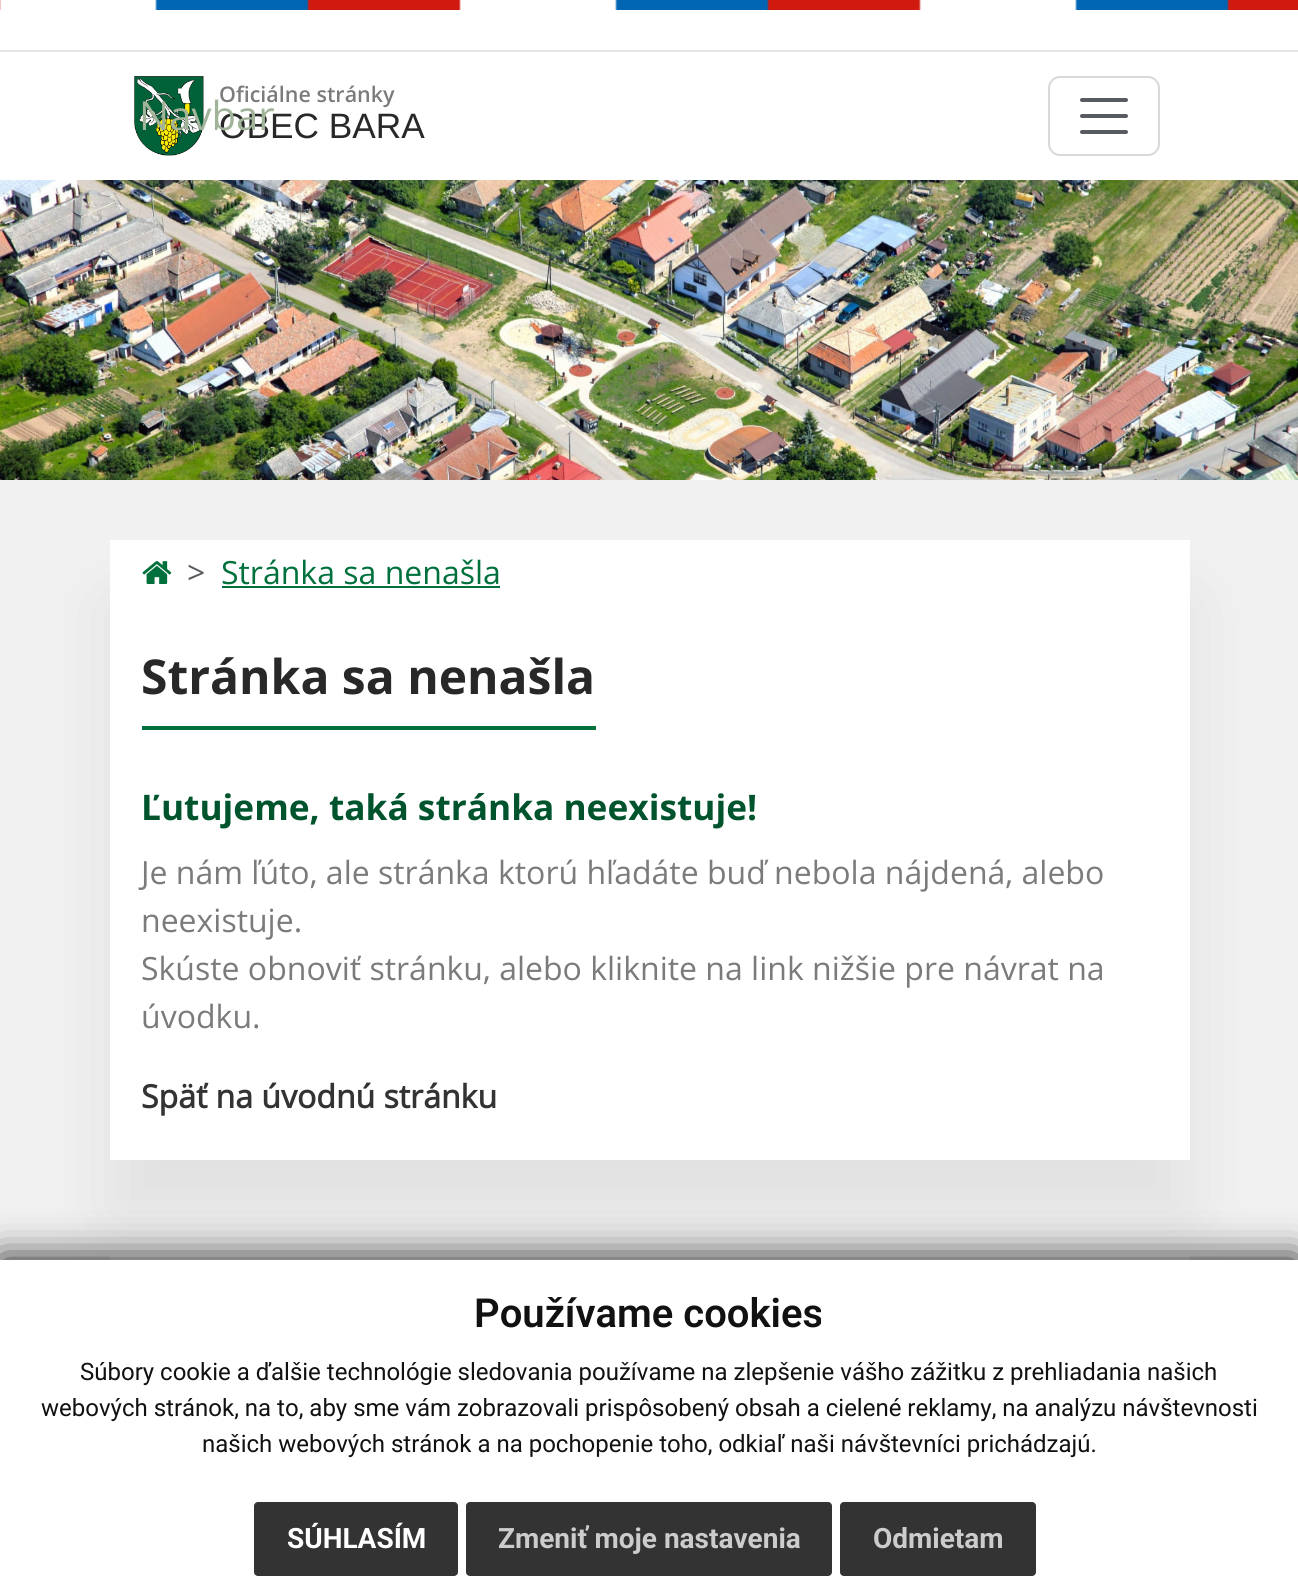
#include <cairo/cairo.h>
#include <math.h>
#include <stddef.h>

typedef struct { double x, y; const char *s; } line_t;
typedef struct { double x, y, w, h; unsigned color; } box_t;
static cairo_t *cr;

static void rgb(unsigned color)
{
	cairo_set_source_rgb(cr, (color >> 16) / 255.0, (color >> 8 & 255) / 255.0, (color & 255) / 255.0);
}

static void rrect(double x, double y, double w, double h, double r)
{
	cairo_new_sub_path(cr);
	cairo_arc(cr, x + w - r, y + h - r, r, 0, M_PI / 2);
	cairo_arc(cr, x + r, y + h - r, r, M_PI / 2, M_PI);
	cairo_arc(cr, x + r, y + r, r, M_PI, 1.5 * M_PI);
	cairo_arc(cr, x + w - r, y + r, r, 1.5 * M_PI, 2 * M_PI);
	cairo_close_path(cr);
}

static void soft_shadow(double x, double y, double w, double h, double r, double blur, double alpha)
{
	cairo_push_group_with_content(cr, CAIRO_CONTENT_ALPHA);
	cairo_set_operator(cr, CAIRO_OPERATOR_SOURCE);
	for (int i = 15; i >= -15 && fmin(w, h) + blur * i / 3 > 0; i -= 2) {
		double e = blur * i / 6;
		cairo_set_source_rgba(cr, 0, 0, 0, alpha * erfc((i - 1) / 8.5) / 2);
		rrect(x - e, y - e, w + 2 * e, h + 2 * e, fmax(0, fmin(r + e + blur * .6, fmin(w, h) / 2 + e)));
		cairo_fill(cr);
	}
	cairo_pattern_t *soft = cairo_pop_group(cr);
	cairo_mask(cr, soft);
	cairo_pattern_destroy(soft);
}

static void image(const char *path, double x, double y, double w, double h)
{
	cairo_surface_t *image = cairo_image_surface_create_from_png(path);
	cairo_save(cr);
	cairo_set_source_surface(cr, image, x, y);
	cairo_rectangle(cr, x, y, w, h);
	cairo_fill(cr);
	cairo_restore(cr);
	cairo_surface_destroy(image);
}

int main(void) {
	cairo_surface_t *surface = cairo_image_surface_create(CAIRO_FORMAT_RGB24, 1298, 1593);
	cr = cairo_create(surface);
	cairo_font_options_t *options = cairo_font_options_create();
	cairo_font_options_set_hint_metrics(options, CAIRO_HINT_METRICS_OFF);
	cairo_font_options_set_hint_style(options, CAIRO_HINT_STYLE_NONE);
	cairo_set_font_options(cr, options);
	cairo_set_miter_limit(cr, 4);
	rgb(0xf1f1f1);
	cairo_paint(cr);
	rgb(0xffffff);
	cairo_rectangle(cr, 0, 10, 1298, 40);
	cairo_fill(cr);
	image("img/1.png", 0, 0, 1298, 10);
	cairo_rectangle(cr, 0, 52, 1298, 128);
	cairo_fill(cr);
	rgb(0xe6e6e6);
	cairo_rectangle(cr, 0, 50, 1298, 2);
	cairo_fill(cr);
	rrect(1049, 77, 110, 78, 11);
	rgb(0xd9d9d9);
	cairo_stroke(cr);
	cairo_new_path(cr);
	cairo_move_to(cr, 1082, 100);
	cairo_line_to(cr, 1126, 100);
	cairo_move_to(cr, 1082, 116);
	cairo_line_to(cr, 1126, 116);
	cairo_move_to(cr, 1082, 132);
	cairo_line_to(cr, 1126, 132);
	rgb(0x595c5f);
	cairo_set_line_width(cr, 4);
	cairo_set_line_cap(cr, CAIRO_LINE_CAP_ROUND);
	cairo_stroke(cr);
	image("img/2.png", 134, 76, 70, 80);
	image("img/3.png", 0, 180, 1298, 300);
	rgb(0x000000);
	soft_shadow(110, 600, 1080, 620, 0, 40, 0.07);
	rgb(0xffffff);
	cairo_rectangle(cr, 110, 540, 1080, 620);
	cairo_fill(cr);
	image("img/4.png", 142, 561, 30, 23);
	{
		static const box_t items[] = {
			{222, 586, 278, 2, 0x00703c},
			{142, 726, 454, 4, 0x00703c},
			{110, 1256, 1080, 4, 0xffffff},
		};
		for (size_t i = 0; i < sizeof items / sizeof *items; i++) {
			rgb(items[i].color);
			cairo_rectangle(cr, items[i].x, items[i].y, items[i].w, items[i].h);
			cairo_fill(cr);
		}
	}
	rgb(0x111111);
	soft_shadow(0, 1260, 1298, 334, 0, 20, 1);
	rgb(0xffffff);
	cairo_rectangle(cr, 0, 1260, 1298, 333);
	cairo_fill(cr);
	rgb(0x333333);
	rrect(254, 1502, 204, 74, 4);
	cairo_fill(cr);
	rrect(466, 1502, 366, 74, 4);
	cairo_fill(cr);
	rrect(840, 1502, 196, 74, 4);
	cairo_fill(cr);
	cairo_select_font_face(cr, "Open Sans SemiBold", CAIRO_FONT_SLANT_NORMAL, CAIRO_FONT_WEIGHT_NORMAL);
	cairo_set_font_size(cr, 21.5);
	rgb(0x7b7b7b);
	cairo_move_to(cr, 219, 102);
	cairo_show_text(cr, "Oficiálne stránky");
	cairo_select_font_face(cr, "Liberation Sans", CAIRO_FONT_SLANT_NORMAL, CAIRO_FONT_WEIGHT_NORMAL);
	cairo_set_font_size(cr, 35.25);
	rgb(0x282828);
	cairo_move_to(cr, 219, 138);
	cairo_show_text(cr, "OBEC BARA");
	cairo_select_font_face(cr, "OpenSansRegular", CAIRO_FONT_SLANT_NORMAL, CAIRO_FONT_WEIGHT_NORMAL);
	cairo_set_font_size(cr, 40);
	rgb(0xa1b49a);
	cairo_move_to(cr, 139, 130);
	cairo_show_text(cr, "Navbar");
	cairo_set_font_size(cr, 32);
	rgb(0x595c5f);
	cairo_move_to(cr, 187, 584);
	cairo_show_text(cr, ">");
	rgb(0x00703c);
	cairo_move_to(cr, 221, 584);
	cairo_show_text(cr, "Stránka sa nenašla");
	cairo_select_font_face(cr, "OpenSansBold", CAIRO_FONT_SLANT_NORMAL, CAIRO_FONT_WEIGHT_BOLD);
	cairo_set_font_size(cr, 48);
	rgb(0x282828);
	cairo_move_to(cr, 141, 694);
	cairo_show_text(cr, "Stránka sa nenašla");
	cairo_set_font_size(cr, 35.25);
	rgb(0x00542d);
	cairo_move_to(cr, 141, 820);
	cairo_show_text(cr, "Ľutujeme, taká stránka neexistuje!");
	cairo_select_font_face(cr, "OpenSansRegular", CAIRO_FONT_SLANT_NORMAL, CAIRO_FONT_WEIGHT_NORMAL);
	cairo_set_font_size(cr, 32);
	rgb(0x7b7b7b);
	{
		static const line_t items[] = {
			{141, 884, "Je nám ľúto, ale stránka ktorú hľadáte buď nebola nájdená, alebo"},
			{141, 932, "neexistuje."},
			{141, 980, "Skúste obnoviť stránku, alebo kliknite na link nižšie pre návrat na"},
			{141, 1028, "úvodku."},
		};
		for (size_t i = 0; i < sizeof items / sizeof *items; i++) {
			cairo_move_to(cr, items[i].x, items[i].y);
			cairo_show_text(cr, items[i].s);
		}
	}
	cairo_select_font_face(cr, "OpenSansRegular", CAIRO_FONT_SLANT_NORMAL, CAIRO_FONT_WEIGHT_BOLD);
	rgb(0x333333);
	cairo_move_to(cr, 141, 1108);
	cairo_show_text(cr, "Späť na úvodnú stránku");
	cairo_select_font_face(cr, "Roboto SemiBold", CAIRO_FONT_SLANT_NORMAL, CAIRO_FONT_WEIGHT_NORMAL);
	cairo_set_font_size(cr, 40);
	rgb(0x111111);
	cairo_move_to(cr, 474, 1327);
	cairo_show_text(cr, "Používame cookies");
	cairo_select_font_face(cr, "Roboto", CAIRO_FONT_SLANT_NORMAL, CAIRO_FONT_WEIGHT_NORMAL);
	cairo_set_font_size(cr, 24);
	{
		static const line_t items[] = {
			{80, 1380, "Súbory cookie a ďalšie technológie sledovania používame na zlepšenie vášho zážitku z prehliadania našich"},
			{41, 1416, "webových stránok, na to, aby sme vám zobrazovali prispôsobený obsah a cielené reklamy, na analýzu návštevnosti"},
			{202, 1452, "našich webových stránok a na pochopenie toho, odkiaľ naši návštevníci prichádzajú."},
		};
		for (size_t i = 0; i < sizeof items / sizeof *items; i++) {
			cairo_move_to(cr, items[i].x, items[i].y);
			cairo_show_text(cr, items[i].s);
		}
	}
	cairo_select_font_face(cr, "Roboto", CAIRO_FONT_SLANT_NORMAL, CAIRO_FONT_WEIGHT_BOLD);
	cairo_set_font_size(cr, 28);
	rgb(0xffffff);
	cairo_move_to(cr, 287, 1548);
	cairo_show_text(cr, "SÚHLASÍM");
	rgb(0xcccccc);
	cairo_move_to(cr, 498, 1548);
	cairo_show_text(cr, "Zmeniť moje nastavenia");
	cairo_move_to(cr, 873, 1548);
	cairo_show_text(cr, "Odmietam");
	cairo_surface_write_to_png(surface, "page.png");
	cairo_font_options_destroy(options);
	cairo_destroy(cr);
	cairo_surface_destroy(surface);
	return 0;
}
